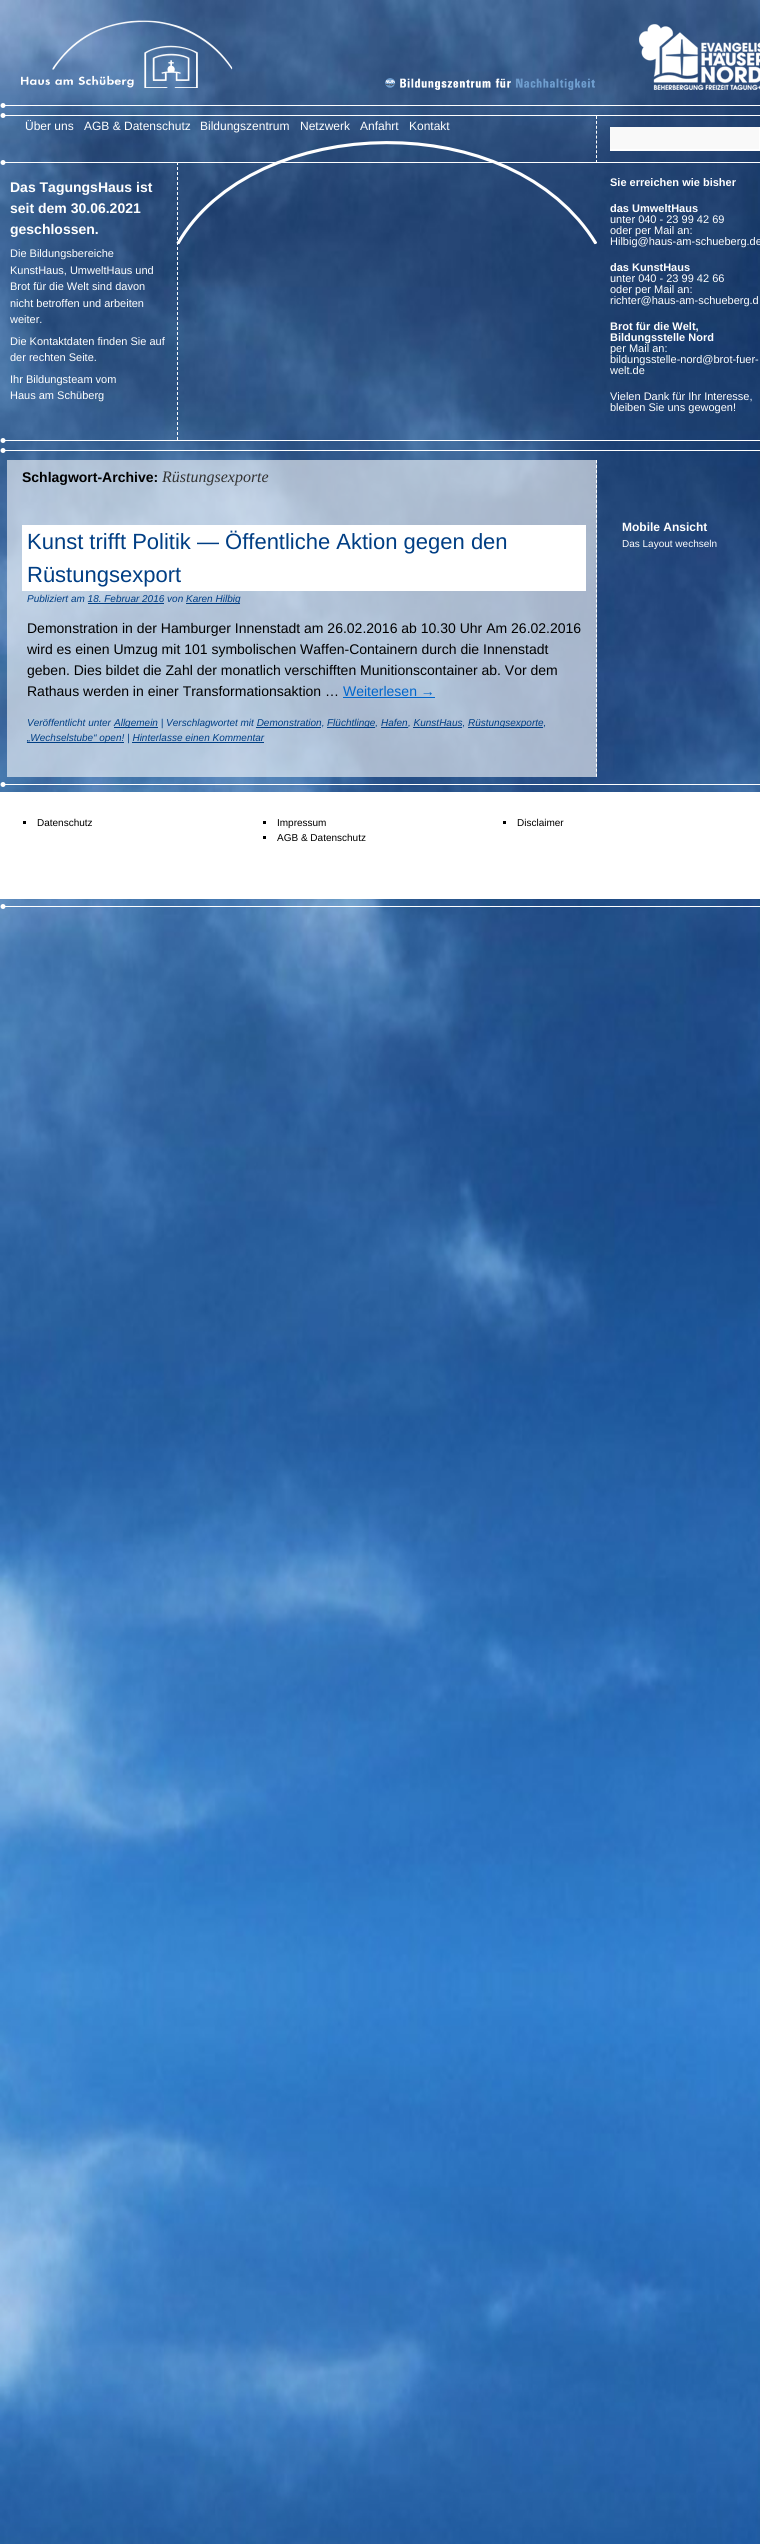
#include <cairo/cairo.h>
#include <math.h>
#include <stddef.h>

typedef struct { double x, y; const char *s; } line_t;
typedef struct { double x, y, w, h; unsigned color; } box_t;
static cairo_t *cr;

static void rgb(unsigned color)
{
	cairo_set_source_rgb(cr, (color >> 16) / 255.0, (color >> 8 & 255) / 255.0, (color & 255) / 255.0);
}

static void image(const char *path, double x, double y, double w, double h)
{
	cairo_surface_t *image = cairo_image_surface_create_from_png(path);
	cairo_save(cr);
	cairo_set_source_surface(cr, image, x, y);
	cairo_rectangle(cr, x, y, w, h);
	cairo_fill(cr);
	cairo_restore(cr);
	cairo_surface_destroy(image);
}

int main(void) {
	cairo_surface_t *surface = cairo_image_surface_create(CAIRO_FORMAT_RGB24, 760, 2544);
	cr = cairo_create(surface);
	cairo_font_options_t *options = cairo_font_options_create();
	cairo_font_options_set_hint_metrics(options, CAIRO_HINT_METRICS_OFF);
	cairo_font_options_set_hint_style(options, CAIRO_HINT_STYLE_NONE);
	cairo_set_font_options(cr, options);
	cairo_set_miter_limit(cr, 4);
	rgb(0xffffff);
	cairo_paint(cr);
	image("img/1.png", 0, 0, 760, 2544);
	image("img/6.png", 0, 113, 760, 5);
	image("img/9.png", 0, 438, 760, 5);
	cairo_new_path(cr);
	cairo_move_to(cr, 177.5, 162);
	cairo_line_to(cr, 177.5, 440);
	rgb(0xffffff);
	cairo_set_line_width(cr, 1);
	cairo_set_dash(cr, (double[]){3, 2}, 2, 0);
	cairo_stroke(cr);
	image("img/8.png", 0, 160, 760, 5);
	image("img/7.png", 176, 141, 421, 104);
	cairo_new_path(cr);
	cairo_move_to(cr, 596.5, 116);
	cairo_line_to(cr, 596.5, 163);
	cairo_set_dash(cr, (double[]){3, 1.89}, 2, 0);
	cairo_stroke(cr);
	image("img/2.png", 21, 20, 212, 68);
	image("img/3.png", 385, 78, 210, 12);
	image("img/4.png", 639, 24, 121, 66);
	image("img/5.png", 0, 103, 760, 5);
	cairo_rectangle(cr, 610, 127, 150, 24);
	cairo_fill(cr);
	rgb(0xf9f9f9);
	cairo_rectangle(cr, 610, 127, 149, 22);
	cairo_fill(cr);
	image("img/10.png", 0, 448, 760, 5);
	cairo_set_source_rgba(cr, 1, 1, 1, 0.6);
	cairo_rectangle(cr, 7, 460, 590, 317);
	cairo_fill(cr);
	cairo_new_path(cr);
	cairo_move_to(cr, 596.5, 460);
	cairo_line_to(cr, 596.5, 777);
	rgb(0xffffff);
	cairo_set_dash(cr, (double[]){3, 1.98}, 2, 0);
	cairo_stroke(cr);
	{
		static const box_t items[] = {
			{22, 525, 564, 66, 0xffffff},
			{186, 603, 54, 1, 0x003e84},
			{88, 603, 76, 1, 0x003e84},
			{343, 697, 92, 1, 0x0066cc},
			{114, 727, 44, 1, 0x003e84},
			{256, 727, 65, 1, 0x003e84},
			{327, 727, 48, 1, 0x003e84},
			{381, 727, 27, 1, 0x003e84},
			{413, 727, 49, 1, 0x003e84},
			{468, 727, 75, 1, 0x003e84},
			{27, 742, 97, 1, 0x003e84},
			{132, 742, 132, 1, 0x003e84},
		};
		for (size_t i = 0; i < sizeof items / sizeof *items; i++) {
			rgb(items[i].color);
			cairo_rectangle(cr, items[i].x, items[i].y, items[i].w, items[i].h);
			cairo_fill(cr);
		}
	}
	image("img/11.png", 0, 782, 760, 5);
	{
		static const box_t items[] = {
			{0, 792, 760, 107, 0xffffff},
			{23, 821, 3, 3, 0x000000},
			{263, 821, 3, 3, 0x000000},
			{263, 836, 3, 3, 0x000000},
			{503, 821, 3, 3, 0x000000},
		};
		for (size_t i = 0; i < sizeof items / sizeof *items; i++) {
			rgb(items[i].color);
			cairo_rectangle(cr, items[i].x, items[i].y, items[i].w, items[i].h);
			cairo_fill(cr);
		}
	}
	image("img/12.png", 0, 904, 760, 5);
	cairo_select_font_face(cr, "Liberation Sans", CAIRO_FONT_SLANT_NORMAL, CAIRO_FONT_WEIGHT_NORMAL);
	cairo_set_font_size(cr, 12);
	rgb(0xffffff);
	{
		static const line_t items[] = {
			{25, 130, "Über uns"},
			{84, 130, "AGB & Datenschutz"},
			{200, 130, "Bildungszentrum"},
			{300, 130, "Netzwerk"},
			{360, 130, "Anfahrt"},
			{409, 130, "Kontakt"},
		};
		for (size_t i = 0; i < sizeof items / sizeof *items; i++) {
			cairo_move_to(cr, items[i].x, items[i].y);
			cairo_show_text(cr, items[i].s);
		}
	}
	cairo_select_font_face(cr, "Liberation Sans", CAIRO_FONT_SLANT_NORMAL, CAIRO_FONT_WEIGHT_BOLD);
	cairo_set_font_size(cr, 14);
	{
		static const line_t items[] = {
			{10, 192, "Das TagungsHaus ist"},
			{10, 213, "seit dem 30.06.2021"},
			{10, 234, "geschlossen."},
		};
		for (size_t i = 0; i < sizeof items / sizeof *items; i++) {
			cairo_move_to(cr, items[i].x, items[i].y);
			cairo_show_text(cr, items[i].s);
		}
	}
	cairo_select_font_face(cr, "Liberation Sans", CAIRO_FONT_SLANT_NORMAL, CAIRO_FONT_WEIGHT_NORMAL);
	cairo_set_font_size(cr, 11);
	{
		static const line_t items[] = {
			{10, 257, "Die Bildungsbereiche"},
			{10, 274, "KunstHaus, UmweltHaus und"},
			{10, 290, "Brot für die Welt sind davon"},
			{10, 307, "nicht betroffen und arbeiten"},
			{10, 323, "weiter."},
			{10, 345, "Die Kontaktdaten finden Sie auf"},
			{10, 361, "der rechten Seite."},
			{10, 383, "Ihr Bildungsteam vom"},
			{10, 399, "Haus am Schüberg"},
		};
		for (size_t i = 0; i < sizeof items / sizeof *items; i++) {
			cairo_move_to(cr, items[i].x, items[i].y);
			cairo_show_text(cr, items[i].s);
		}
	}
	cairo_select_font_face(cr, "Liberation Sans", CAIRO_FONT_SLANT_NORMAL, CAIRO_FONT_WEIGHT_BOLD);
	cairo_move_to(cr, 610, 186);
	cairo_show_text(cr, "Sie erreichen wie bisher");
	cairo_move_to(cr, 610, 212);
	cairo_show_text(cr, "das UmweltHaus");
	cairo_select_font_face(cr, "Liberation Sans", CAIRO_FONT_SLANT_NORMAL, CAIRO_FONT_WEIGHT_NORMAL);
	{
		static const line_t items[] = {
			{610, 223, "unter 040 - 23 99 42 69"},
			{610, 234, "oder per Mail an:"},
			{610, 245, "Hilbig@haus-am-schueberg.de"},
		};
		for (size_t i = 0; i < sizeof items / sizeof *items; i++) {
			cairo_move_to(cr, items[i].x, items[i].y);
			cairo_show_text(cr, items[i].s);
		}
	}
	cairo_select_font_face(cr, "Liberation Sans", CAIRO_FONT_SLANT_NORMAL, CAIRO_FONT_WEIGHT_BOLD);
	cairo_move_to(cr, 610, 271);
	cairo_show_text(cr, "das KunstHaus");
	cairo_select_font_face(cr, "Liberation Sans", CAIRO_FONT_SLANT_NORMAL, CAIRO_FONT_WEIGHT_NORMAL);
	{
		static const line_t items[] = {
			{610, 282, "unter 040 - 23 99 42 66"},
			{610, 293, "oder per Mail an:"},
			{610, 304, "richter@haus-am-schueberg.d"},
		};
		for (size_t i = 0; i < sizeof items / sizeof *items; i++) {
			cairo_move_to(cr, items[i].x, items[i].y);
			cairo_show_text(cr, items[i].s);
		}
	}
	cairo_select_font_face(cr, "Liberation Sans", CAIRO_FONT_SLANT_NORMAL, CAIRO_FONT_WEIGHT_BOLD);
	cairo_move_to(cr, 610, 330);
	cairo_show_text(cr, "Brot für die Welt,");
	cairo_move_to(cr, 610, 341);
	cairo_show_text(cr, "Bildungsstelle Nord");
	cairo_select_font_face(cr, "Liberation Sans", CAIRO_FONT_SLANT_NORMAL, CAIRO_FONT_WEIGHT_NORMAL);
	{
		static const line_t items[] = {
			{610, 352, "per Mail an:"},
			{610, 363, "bildungsstelle-nord@brot-fuer-"},
			{610, 374, "welt.de"},
			{610, 400, "Vielen Dank für Ihr Interesse,"},
			{610, 411, "bleiben Sie uns gewogen!"},
		};
		for (size_t i = 0; i < sizeof items / sizeof *items; i++) {
			cairo_move_to(cr, items[i].x, items[i].y);
			cairo_show_text(cr, items[i].s);
		}
	}
	cairo_select_font_face(cr, "Liberation Sans", CAIRO_FONT_SLANT_NORMAL, CAIRO_FONT_WEIGHT_BOLD);
	cairo_set_font_size(cr, 14);
	rgb(0x000000);
	cairo_move_to(cr, 22, 482);
	cairo_show_text(cr, "Schlagwort-Archive:");
	cairo_select_font_face(cr, "Liberation Serif", CAIRO_FONT_SLANT_ITALIC, CAIRO_FONT_WEIGHT_NORMAL);
	cairo_set_font_size(cr, 16);
	rgb(0x333333);
	cairo_move_to(cr, 162, 482);
	cairo_show_text(cr, "Rüstungsexporte");
	cairo_select_font_face(cr, "Liberation Sans", CAIRO_FONT_SLANT_NORMAL, CAIRO_FONT_WEIGHT_NORMAL);
	cairo_set_font_size(cr, 22);
	rgb(0x003e84);
	cairo_move_to(cr, 27, 549);
	cairo_show_text(cr, "Kunst trifft Politik — Öffentliche Aktion gegen den");
	cairo_move_to(cr, 27, 582);
	cairo_show_text(cr, "Rüstungsexport");
	cairo_select_font_face(cr, "Liberation Sans", CAIRO_FONT_SLANT_ITALIC, CAIRO_FONT_WEIGHT_NORMAL);
	cairo_set_font_size(cr, 10);
	cairo_move_to(cr, 27, 602);
	cairo_show_text(cr, "Publiziert am 18. Februar 2016 von");
	cairo_move_to(cr, 186, 602);
	cairo_show_text(cr, "Karen Hilbig");
	cairo_select_font_face(cr, "Liberation Sans", CAIRO_FONT_SLANT_NORMAL, CAIRO_FONT_WEIGHT_NORMAL);
	cairo_set_font_size(cr, 14);
	rgb(0x000000);
	{
		static const line_t items[] = {
			{27, 633, "Demonstration in der Hamburger Innenstadt am 26.02.2016 ab 10.30 Uhr Am 26.02.2016"},
			{27, 654, "wird es einen Umzug mit 101 symbolischen Waffen-Containern durch die Innenstadt"},
			{27, 675, "geben. Dies bildet die Zahl der monatlich verschifften Munitionscontainer ab. Vor dem"},
			{27, 696, "Rathaus werden in einer Transformationsaktion …"},
		};
		for (size_t i = 0; i < sizeof items / sizeof *items; i++) {
			cairo_move_to(cr, items[i].x, items[i].y);
			cairo_show_text(cr, items[i].s);
		}
	}
	rgb(0x0066cc);
	cairo_move_to(cr, 343, 696);
	cairo_show_text(cr, "Weiterlesen →");
	cairo_select_font_face(cr, "Liberation Sans", CAIRO_FONT_SLANT_ITALIC, CAIRO_FONT_WEIGHT_NORMAL);
	cairo_set_font_size(cr, 10);
	rgb(0x003e84);
	{
		static const line_t items[] = {
			{27, 726, "Veröffentlicht unter"},
			{114, 726, "Allgemein | Verschlagwortet mit Demonstration,"},
			{327, 726, "Flüchtlinge, Hafen"},
			{408, 726, ", KunstHaus,"},
			{468, 726, "Rüstungsexporte,"},
			{27, 741, "„Wechselstube“ open! | Hinterlasse einen Kommentar"},
		};
		for (size_t i = 0; i < sizeof items / sizeof *items; i++) {
			cairo_move_to(cr, items[i].x, items[i].y);
			cairo_show_text(cr, items[i].s);
		}
	}
	cairo_select_font_face(cr, "Liberation Sans", CAIRO_FONT_SLANT_NORMAL, CAIRO_FONT_WEIGHT_BOLD);
	cairo_set_font_size(cr, 12);
	rgb(0xffffff);
	cairo_move_to(cr, 622, 531);
	cairo_show_text(cr, "Mobile Ansicht");
	cairo_select_font_face(cr, "Liberation Sans", CAIRO_FONT_SLANT_NORMAL, CAIRO_FONT_WEIGHT_NORMAL);
	cairo_set_font_size(cr, 10);
	cairo_move_to(cr, 622, 547);
	cairo_show_text(cr, "Das Layout wechseln");
	rgb(0x000000);
	{
		static const line_t items[] = {
			{37, 826, "Datenschutz"},
			{277, 826, "Impressum"},
			{277, 841, "AGB & Datenschutz"},
			{517, 826, "Disclaimer"},
		};
		for (size_t i = 0; i < sizeof items / sizeof *items; i++) {
			cairo_move_to(cr, items[i].x, items[i].y);
			cairo_show_text(cr, items[i].s);
		}
	}
	cairo_surface_write_to_png(surface, "page.png");
	cairo_font_options_destroy(options);
	cairo_destroy(cr);
	cairo_surface_destroy(surface);
	return 0;
}
